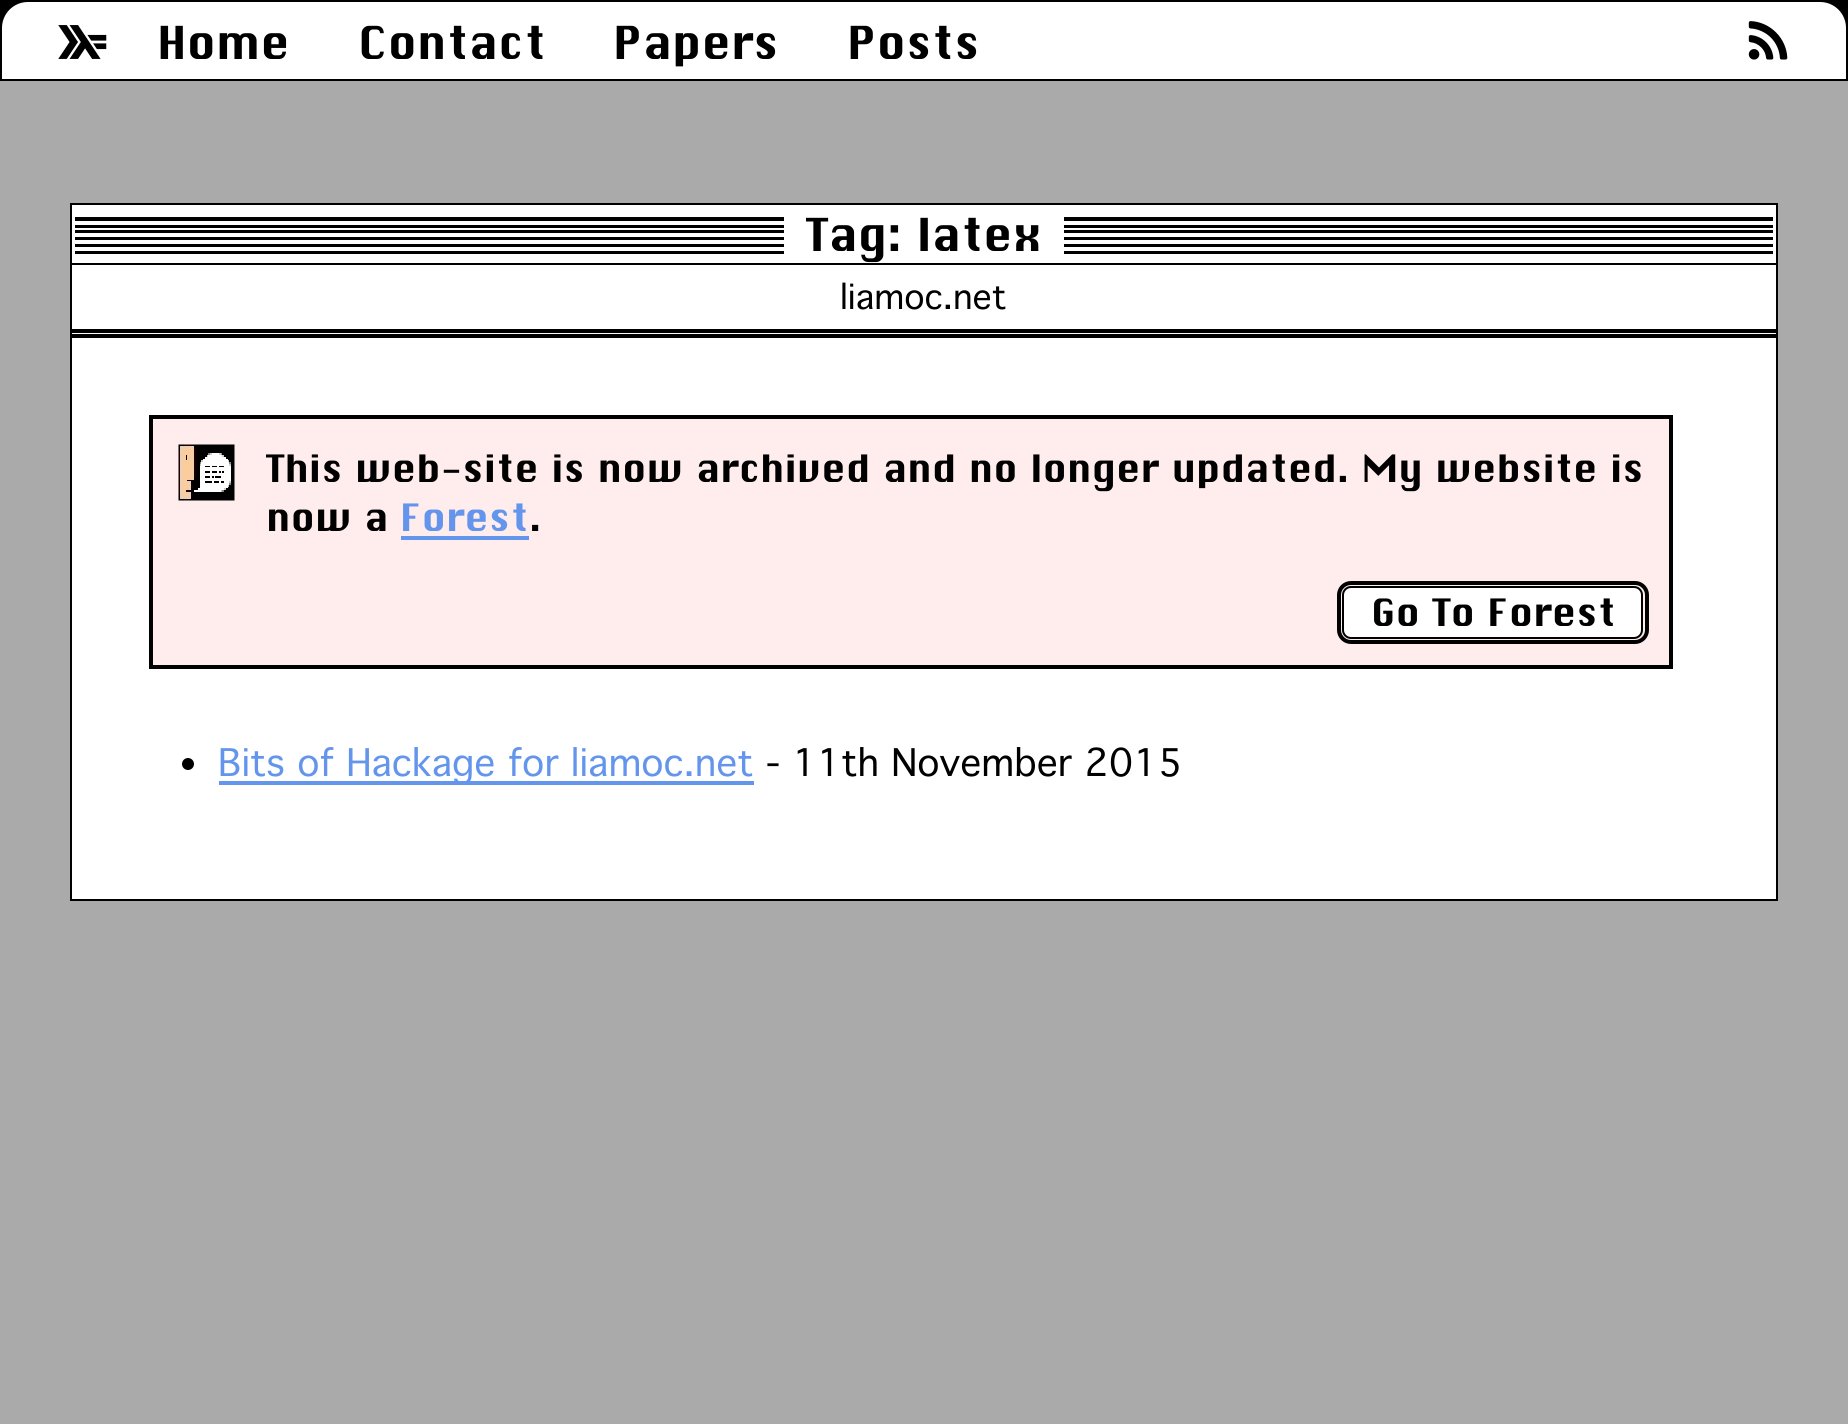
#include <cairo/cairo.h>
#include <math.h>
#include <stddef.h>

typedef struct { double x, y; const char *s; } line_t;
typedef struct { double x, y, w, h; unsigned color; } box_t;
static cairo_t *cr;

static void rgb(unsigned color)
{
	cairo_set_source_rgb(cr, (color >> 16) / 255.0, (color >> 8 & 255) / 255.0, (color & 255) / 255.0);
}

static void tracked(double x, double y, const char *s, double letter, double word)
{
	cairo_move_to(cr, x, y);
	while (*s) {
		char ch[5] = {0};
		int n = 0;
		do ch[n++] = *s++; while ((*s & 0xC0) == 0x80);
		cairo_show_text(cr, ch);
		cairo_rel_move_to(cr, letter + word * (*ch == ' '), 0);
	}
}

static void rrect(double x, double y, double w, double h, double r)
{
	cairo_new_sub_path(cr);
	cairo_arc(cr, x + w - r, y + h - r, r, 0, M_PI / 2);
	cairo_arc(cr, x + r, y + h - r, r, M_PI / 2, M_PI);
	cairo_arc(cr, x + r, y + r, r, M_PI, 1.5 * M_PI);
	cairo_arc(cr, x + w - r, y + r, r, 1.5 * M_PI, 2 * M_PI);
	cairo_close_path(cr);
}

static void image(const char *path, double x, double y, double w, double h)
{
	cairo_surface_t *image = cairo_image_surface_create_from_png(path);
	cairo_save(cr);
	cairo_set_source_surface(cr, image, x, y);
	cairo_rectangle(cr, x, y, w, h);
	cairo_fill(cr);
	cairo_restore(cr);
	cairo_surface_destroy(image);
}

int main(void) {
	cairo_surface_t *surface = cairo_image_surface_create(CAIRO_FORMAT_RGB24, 1848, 1424);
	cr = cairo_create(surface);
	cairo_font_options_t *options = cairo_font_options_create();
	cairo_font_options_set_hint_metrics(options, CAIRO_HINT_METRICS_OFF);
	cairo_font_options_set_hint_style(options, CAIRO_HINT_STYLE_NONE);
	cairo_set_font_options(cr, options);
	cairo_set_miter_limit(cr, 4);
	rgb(0xaaaaaa);
	cairo_paint(cr);
	rgb(0x000000);
	cairo_rectangle(cr, 0, 0, 1848, 28);
	cairo_fill(cr);
	rgb(0xffffff);
	cairo_new_path(cr);
	cairo_move_to(cr, 28, 1);
	cairo_line_to(cr, 1820, 1);
	cairo_curve_to(cr, 1835, 1, 1847, 13, 1847, 28);
	cairo_line_to(cr, 1847, 80);
	cairo_line_to(cr, 1, 80);
	cairo_line_to(cr, 1, 28);
	cairo_curve_to(cr, 1, 13, 13, 1, 28, 1);
	cairo_close_path(cr);
	cairo_fill_preserve(cr);
	rgb(0x000000);
	cairo_stroke(cr);
	image("img/1.png", 58, 25, 49, 34);
	image("img/2.png", 1748, 21, 40, 39);
	rgb(0xffffff);
	cairo_rectangle(cr, 71, 204, 1706, 696);
	cairo_fill_preserve(cr);
	rgb(0x000000);
	cairo_stroke(cr);
	{
		static const box_t items[] = {
			{72, 263, 1704, 2, 0x000000},
			{75, 251, 1698, 3, 0x000000},
			{75, 244, 1698, 3, 0x000000},
			{75, 237, 1698, 3, 0x000000},
			{75, 230, 1698, 3, 0x000000},
			{75, 225, 1698, 3, 0x000000},
			{75, 217, 1698, 4, 0x000000},
			{784, 217, 280, 37, 0xffffff},
			{72, 329, 1704, 4, 0x000000},
			{72, 334, 1704, 4, 0x000000},
			{153, 419, 1516, 246, 0xffecec},
		};
		for (size_t i = 0; i < sizeof items / sizeof *items; i++) {
			rgb(items[i].color);
			cairo_rectangle(cr, items[i].x, items[i].y, items[i].w, items[i].h);
			cairo_fill(cr);
		}
	}
	image("img/3.png", 178, 444, 57, 57);
	cairo_rectangle(cr, 151, 417, 1520, 250);
	rgb(0x000000);
	cairo_set_line_width(cr, 4);
	cairo_stroke(cr);
	rgb(0x6495ed);
	cairo_rectangle(cr, 401, 536, 128, 4);
	cairo_fill(cr);
	rgb(0xffffff);
	rrect(1343, 587, 299, 51, 8);
	cairo_fill_preserve(cr);
	rgb(0x000000);
	cairo_set_line_width(cr, 2);
	cairo_stroke(cr);
	rrect(1339, 583, 308, 59, 12);
	cairo_set_line_width(cr, 4);
	cairo_stroke(cr);
	cairo_arc(cr, 188, 764, 6, 0, 2 * M_PI);
	cairo_fill(cr);
	rgb(0x6495ed);
	cairo_rectangle(cr, 219, 781, 535, 4);
	cairo_fill(cr);
	cairo_select_font_face(cr, "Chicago", CAIRO_FONT_SLANT_NORMAL, CAIRO_FONT_WEIGHT_NORMAL);
	cairo_set_font_size(cr, 44.25);
	rgb(0x000000);
	{
		static const line_t items[] = {
			{157, 59, "Home"},
			{358, 59, "Contact"},
			{613, 59, "Papers"},
			{847, 59, "Posts"},
			{806, 251, "Tag: latex"},
		};
		for (size_t i = 0; i < sizeof items / sizeof *items; i++) {
			cairo_move_to(cr, items[i].x, items[i].y);
			cairo_show_text(cr, items[i].s);
		}
	}
	cairo_select_font_face(cr, "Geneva", CAIRO_FONT_SLANT_NORMAL, CAIRO_FONT_WEIGHT_NORMAL);
	cairo_set_font_size(cr, 33.5);
	cairo_move_to(cr, 840, 309);
	cairo_show_text(cr, "liamoc.net");
	cairo_select_font_face(cr, "Chicago", CAIRO_FONT_SLANT_NORMAL, CAIRO_FONT_WEIGHT_NORMAL);
	cairo_set_font_size(cr, 36.75);
	tracked(266, 482, "This web-site is now archived and no longer updated. My website is", 0, 0.25);
	cairo_move_to(cr, 266, 531);
	cairo_show_text(cr, "now a");
	rgb(0x6495ed);
	cairo_move_to(cr, 400, 531);
	cairo_show_text(cr, "Forest");
	rgb(0x000000);
	cairo_move_to(cr, 529, 531);
	cairo_show_text(cr, ".");
	cairo_move_to(cr, 1371, 626);
	cairo_show_text(cr, "Go To Forest");
	cairo_select_font_face(cr, "Geneva", CAIRO_FONT_SLANT_NORMAL, CAIRO_FONT_WEIGHT_NORMAL);
	rgb(0x6495ed);
	cairo_move_to(cr, 218, 776);
	cairo_show_text(cr, "Bits of Hackage for liamoc.net");
	rgb(0x000000);
	cairo_move_to(cr, 766, 776);
	cairo_show_text(cr, "- 11th November 2015");
	cairo_surface_write_to_png(surface, "page.png");
	cairo_font_options_destroy(options);
	cairo_destroy(cr);
	cairo_surface_destroy(surface);
	return 0;
}
